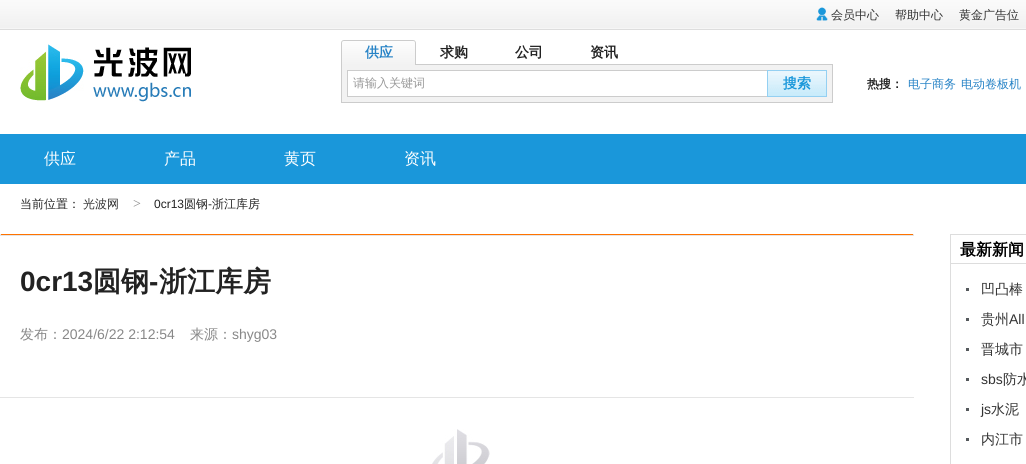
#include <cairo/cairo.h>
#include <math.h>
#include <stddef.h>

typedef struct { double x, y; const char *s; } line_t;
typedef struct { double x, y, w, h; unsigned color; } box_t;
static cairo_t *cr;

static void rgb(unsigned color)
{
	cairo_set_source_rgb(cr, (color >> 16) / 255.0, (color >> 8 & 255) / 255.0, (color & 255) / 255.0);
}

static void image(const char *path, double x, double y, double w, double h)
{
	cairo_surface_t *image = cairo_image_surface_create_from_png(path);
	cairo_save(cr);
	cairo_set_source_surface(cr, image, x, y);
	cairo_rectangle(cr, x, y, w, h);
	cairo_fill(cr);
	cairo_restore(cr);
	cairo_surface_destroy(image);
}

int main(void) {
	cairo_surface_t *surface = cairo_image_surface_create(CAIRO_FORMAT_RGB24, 1026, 464);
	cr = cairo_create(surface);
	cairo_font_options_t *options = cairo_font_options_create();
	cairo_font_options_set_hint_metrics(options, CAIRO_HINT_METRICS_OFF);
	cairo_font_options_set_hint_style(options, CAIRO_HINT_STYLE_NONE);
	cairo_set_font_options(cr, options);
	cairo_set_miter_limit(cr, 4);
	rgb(0xffffff);
	cairo_paint(cr);
	image("img/1.png", 0, 0, 1026, 30);
	image("img/2.png", 816, 7, 12, 14);
	image("img/3.png", 20, 44, 171, 58);
	rgb(0xf2f2f2);
	cairo_rectangle(cr, 341.5, 64.5, 491, 38);
	cairo_fill_preserve(cr);
	rgb(0xcccccc);
	cairo_set_line_width(cr, 1);
	cairo_stroke(cr);
	image("img/4.png", 341, 40, 75, 25);
	{
		static const box_t items[] = {
			{348, 71, 419, 25, 0xffffff},
			{347, 70, 420, 1, 0xcccccc},
			{347, 96, 420, 1, 0xcccccc},
			{347, 70, 1, 27, 0xcccccc},
		};
		for (size_t i = 0; i < sizeof items / sizeof *items; i++) {
			rgb(items[i].color);
			cairo_rectangle(cr, items[i].x, items[i].y, items[i].w, items[i].h);
			cairo_fill(cr);
		}
	}
	image("img/5.png", 767, 70, 60, 27);
	{
		static const box_t items[] = {
			{0, 134, 1026, 50, 0x1a97da},
			{0, 234, 914, 1, 0xff7300},
			{913, 234, 1, 2, 0xe5e5e5},
			{0, 235, 914, 1, 0xe5e5e5},
			{0, 234, 1, 2, 0xe5e5e5},
			{0, 397, 914, 1, 0xe5e5e5},
		};
		for (size_t i = 0; i < sizeof items / sizeof *items; i++) {
			rgb(items[i].color);
			cairo_rectangle(cr, items[i].x, items[i].y, items[i].w, items[i].h);
			cairo_fill(cr);
		}
	}
	image("img/6.png", 432, 429, 58, 35);
	cairo_rectangle(cr, 950.5, 234.5, 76, 29);
	rgb(0xdddddd);
	cairo_stroke(cr);
	{
		static const box_t items[] = {
			{950, 264, 1, 200, 0xdddddd},
			{966, 288, 3, 3, 0x55595c},
			{966, 318, 3, 3, 0x55595c},
			{966, 348, 3, 3, 0x55595c},
			{966, 378, 3, 3, 0x55595c},
			{966, 408, 3, 3, 0x55595c},
			{966, 438, 3, 3, 0x55595c},
		};
		for (size_t i = 0; i < sizeof items / sizeof *items; i++) {
			rgb(items[i].color);
			cairo_rectangle(cr, items[i].x, items[i].y, items[i].w, items[i].h);
			cairo_fill(cr);
		}
	}
	cairo_select_font_face(cr, "WenQuanYi Zen Hei Medium", CAIRO_FONT_SLANT_NORMAL, CAIRO_FONT_WEIGHT_NORMAL);
	cairo_set_font_size(cr, 12);
	rgb(0x333333);
	{
		static const line_t items[] = {
			{831, 19, "会员中心"},
			{895, 19, "帮助中心"},
			{959, 19, "黄金广告位"},
		};
		for (size_t i = 0; i < sizeof items / sizeof *items; i++) {
			cairo_move_to(cr, items[i].x, items[i].y);
			cairo_show_text(cr, items[i].s);
		}
	}
	cairo_select_font_face(cr, "WenQuanYi Zen Hei", CAIRO_FONT_SLANT_NORMAL, CAIRO_FONT_WEIGHT_BOLD);
	cairo_set_font_size(cr, 14);
	rgb(0x2783c6);
	cairo_move_to(cr, 365, 57);
	cairo_show_text(cr, "供应");
	rgb(0x222222);
	{
		static const line_t items[] = {
			{440, 57, "求购"},
			{515, 57, "公司"},
			{590, 57, "资讯"},
		};
		for (size_t i = 0; i < sizeof items / sizeof *items; i++) {
			cairo_move_to(cr, items[i].x, items[i].y);
			cairo_show_text(cr, items[i].s);
		}
	}
	cairo_select_font_face(cr, "WenQuanYi Zen Hei Medium", CAIRO_FONT_SLANT_NORMAL, CAIRO_FONT_WEIGHT_NORMAL);
	cairo_set_font_size(cr, 12);
	rgb(0x999999);
	cairo_move_to(cr, 353, 87);
	cairo_show_text(cr, "请输入关键词");
	cairo_select_font_face(cr, "WenQuanYi Zen Hei", CAIRO_FONT_SLANT_NORMAL, CAIRO_FONT_WEIGHT_BOLD);
	cairo_set_font_size(cr, 14);
	rgb(0x1a97da);
	cairo_move_to(cr, 783, 88);
	cairo_show_text(cr, "搜索");
	cairo_set_font_size(cr, 12);
	rgb(0x222222);
	cairo_move_to(cr, 867, 88);
	cairo_show_text(cr, "热搜：");
	cairo_select_font_face(cr, "WenQuanYi Zen Hei Medium", CAIRO_FONT_SLANT_NORMAL, CAIRO_FONT_WEIGHT_NORMAL);
	rgb(0x2783c6);
	cairo_move_to(cr, 908, 88);
	cairo_show_text(cr, "电子商务");
	cairo_move_to(cr, 961, 88);
	cairo_show_text(cr, "电动卷板机");
	cairo_set_font_size(cr, 16);
	rgb(0xffffff);
	{
		static const line_t items[] = {
			{44, 164, "供应"},
			{164, 164, "产品"},
			{284, 164, "黄页"},
			{404, 164, "资讯"},
		};
		for (size_t i = 0; i < sizeof items / sizeof *items; i++) {
			cairo_move_to(cr, items[i].x, items[i].y);
			cairo_show_text(cr, items[i].s);
		}
	}
	cairo_set_font_size(cr, 12);
	rgb(0x222222);
	cairo_move_to(cr, 20, 208);
	cairo_show_text(cr, "当前位置：");
	rgb(0x333333);
	cairo_move_to(cr, 83, 208);
	cairo_show_text(cr, "光波网");
	cairo_select_font_face(cr, "Liberation Serif", CAIRO_FONT_SLANT_NORMAL, CAIRO_FONT_WEIGHT_NORMAL);
	cairo_set_font_size(cr, 14);
	rgb(0x888888);
	cairo_move_to(cr, 133, 208);
	cairo_show_text(cr, ">");
	cairo_select_font_face(cr, "Liberation Sans", CAIRO_FONT_SLANT_NORMAL, CAIRO_FONT_WEIGHT_NORMAL);
	cairo_set_font_size(cr, 12);
	rgb(0x222222);
	cairo_move_to(cr, 154, 208);
	cairo_show_text(cr, "0cr13");
	cairo_select_font_face(cr, "WenQuanYi Zen Hei Medium", CAIRO_FONT_SLANT_NORMAL, CAIRO_FONT_WEIGHT_NORMAL);
	cairo_move_to(cr, 184, 208);
	cairo_show_text(cr, "圆钢");
	cairo_select_font_face(cr, "Liberation Sans", CAIRO_FONT_SLANT_NORMAL, CAIRO_FONT_WEIGHT_NORMAL);
	cairo_move_to(cr, 208, 208);
	cairo_show_text(cr, "-");
	cairo_select_font_face(cr, "WenQuanYi Zen Hei Medium", CAIRO_FONT_SLANT_NORMAL, CAIRO_FONT_WEIGHT_NORMAL);
	cairo_move_to(cr, 212, 208);
	cairo_show_text(cr, "浙江库房");
	cairo_select_font_face(cr, "Liberation Sans", CAIRO_FONT_SLANT_NORMAL, CAIRO_FONT_WEIGHT_BOLD);
	cairo_set_font_size(cr, 28);
	cairo_move_to(cr, 20, 291);
	cairo_show_text(cr, "0cr13");
	cairo_select_font_face(cr, "WenQuanYi Zen Hei", CAIRO_FONT_SLANT_NORMAL, CAIRO_FONT_WEIGHT_BOLD);
	cairo_move_to(cr, 93, 291);
	cairo_show_text(cr, "圆钢");
	cairo_select_font_face(cr, "Liberation Sans", CAIRO_FONT_SLANT_NORMAL, CAIRO_FONT_WEIGHT_BOLD);
	cairo_move_to(cr, 149, 291);
	cairo_show_text(cr, "-");
	cairo_select_font_face(cr, "WenQuanYi Zen Hei", CAIRO_FONT_SLANT_NORMAL, CAIRO_FONT_WEIGHT_BOLD);
	cairo_move_to(cr, 159, 291);
	cairo_show_text(cr, "浙江库房");
	cairo_select_font_face(cr, "WenQuanYi Zen Hei Medium", CAIRO_FONT_SLANT_NORMAL, CAIRO_FONT_WEIGHT_NORMAL);
	cairo_set_font_size(cr, 14);
	rgb(0x888888);
	cairo_move_to(cr, 20, 339);
	cairo_show_text(cr, "发布：");
	cairo_select_font_face(cr, "Liberation Sans", CAIRO_FONT_SLANT_NORMAL, CAIRO_FONT_WEIGHT_NORMAL);
	cairo_move_to(cr, 62, 339);
	cairo_show_text(cr, "2024/6/22 2:12:54");
	cairo_select_font_face(cr, "WenQuanYi Zen Hei Medium", CAIRO_FONT_SLANT_NORMAL, CAIRO_FONT_WEIGHT_NORMAL);
	cairo_move_to(cr, 190, 339);
	cairo_show_text(cr, "来源：");
	cairo_select_font_face(cr, "Liberation Sans", CAIRO_FONT_SLANT_NORMAL, CAIRO_FONT_WEIGHT_NORMAL);
	cairo_move_to(cr, 232, 339);
	cairo_show_text(cr, "shyg03");
	cairo_select_font_face(cr, "WenQuanYi Zen Hei", CAIRO_FONT_SLANT_NORMAL, CAIRO_FONT_WEIGHT_BOLD);
	cairo_set_font_size(cr, 16);
	rgb(0x000000);
	cairo_move_to(cr, 960, 255);
	cairo_show_text(cr, "最新新闻");
	cairo_select_font_face(cr, "WenQuanYi Zen Hei Medium", CAIRO_FONT_SLANT_NORMAL, CAIRO_FONT_WEIGHT_NORMAL);
	cairo_set_font_size(cr, 14);
	rgb(0x333333);
	cairo_move_to(cr, 981, 294);
	cairo_show_text(cr, "凹凸棒");
	cairo_move_to(cr, 981, 324);
	cairo_show_text(cr, "贵州");
	cairo_select_font_face(cr, "Liberation Sans", CAIRO_FONT_SLANT_NORMAL, CAIRO_FONT_WEIGHT_NORMAL);
	cairo_move_to(cr, 1009, 324);
	cairo_show_text(cr, "All");
	cairo_select_font_face(cr, "WenQuanYi Zen Hei Medium", CAIRO_FONT_SLANT_NORMAL, CAIRO_FONT_WEIGHT_NORMAL);
	cairo_move_to(cr, 981, 354);
	cairo_show_text(cr, "晋城市");
	cairo_select_font_face(cr, "Liberation Sans", CAIRO_FONT_SLANT_NORMAL, CAIRO_FONT_WEIGHT_NORMAL);
	cairo_move_to(cr, 981, 384);
	cairo_show_text(cr, "sbs");
	cairo_select_font_face(cr, "WenQuanYi Zen Hei Medium", CAIRO_FONT_SLANT_NORMAL, CAIRO_FONT_WEIGHT_NORMAL);
	cairo_move_to(cr, 1003, 384);
	cairo_show_text(cr, "防水");
	cairo_select_font_face(cr, "Liberation Sans", CAIRO_FONT_SLANT_NORMAL, CAIRO_FONT_WEIGHT_NORMAL);
	cairo_move_to(cr, 981, 414);
	cairo_show_text(cr, "js");
	cairo_select_font_face(cr, "WenQuanYi Zen Hei Medium", CAIRO_FONT_SLANT_NORMAL, CAIRO_FONT_WEIGHT_NORMAL);
	cairo_move_to(cr, 991, 414);
	cairo_show_text(cr, "水泥");
	cairo_move_to(cr, 981, 444);
	cairo_show_text(cr, "内江市");
	cairo_surface_write_to_png(surface, "page.png");
	cairo_font_options_destroy(options);
	cairo_destroy(cr);
	cairo_surface_destroy(surface);
	return 0;
}
